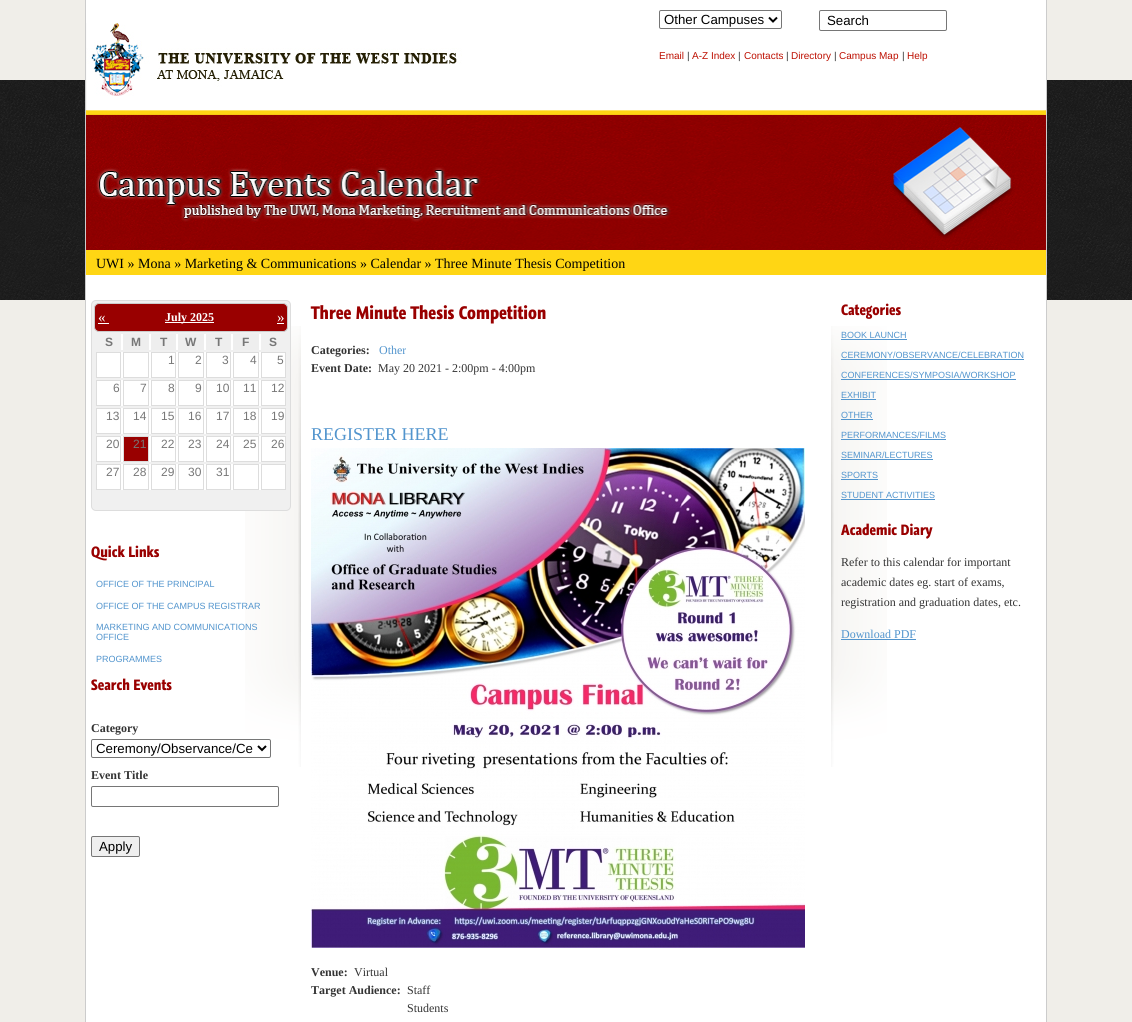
#include <cairo/cairo.h>
#include <math.h>
#include <stddef.h>

typedef struct { double x, y; const char *s; } line_t;
typedef struct { double x, y, w, h; unsigned color; } box_t;
static cairo_t *cr;

static void rgb(unsigned color)
{
	cairo_set_source_rgb(cr, (color >> 16) / 255.0, (color >> 8 & 255) / 255.0, (color & 255) / 255.0);
}

static void rrect(double x, double y, double w, double h, double r)
{
	cairo_new_sub_path(cr);
	cairo_arc(cr, x + w - r, y + h - r, r, 0, M_PI / 2);
	cairo_arc(cr, x + r, y + h - r, r, M_PI / 2, M_PI);
	cairo_arc(cr, x + r, y + r, r, M_PI, 1.5 * M_PI);
	cairo_arc(cr, x + w - r, y + r, r, 1.5 * M_PI, 2 * M_PI);
	cairo_close_path(cr);
}

static void image(const char *path, double x, double y, double w, double h)
{
	cairo_surface_t *image = cairo_image_surface_create_from_png(path);
	cairo_save(cr);
	cairo_set_source_surface(cr, image, x, y);
	cairo_rectangle(cr, x, y, w, h);
	cairo_fill(cr);
	cairo_restore(cr);
	cairo_surface_destroy(image);
}

int main(void) {
	cairo_surface_t *surface = cairo_image_surface_create(CAIRO_FORMAT_RGB24, 1132, 1022);
	cr = cairo_create(surface);
	cairo_font_options_t *options = cairo_font_options_create();
	cairo_font_options_set_hint_metrics(options, CAIRO_HINT_METRICS_OFF);
	cairo_font_options_set_hint_style(options, CAIRO_HINT_STYLE_NONE);
	cairo_set_font_options(cr, options);
	cairo_set_miter_limit(cr, 4);
	rgb(0xf0eee9);
	cairo_paint(cr);
	image("img/6.png", 0, 80, 1132, 220);
	{
		static const box_t items[] = {
			{86, 0, 960, 1022, 0xffffff},
			{1046, 0, 1, 1022, 0xcccccc},
			{85, 0, 1, 1022, 0xcccccc},
		};
		for (size_t i = 0; i < sizeof items / sizeof *items; i++) {
			rgb(items[i].color);
			cairo_rectangle(cr, items[i].x, items[i].y, items[i].w, items[i].h);
			cairo_fill(cr);
		}
	}
	image("img/1.png", 86, 23, 376, 87);
	rrect(659.5, 10.5, 122, 18, 1.5);
	rgb(0x767676);
	cairo_set_line_width(cr, 1);
	cairo_stroke(cr);
	cairo_new_path(cr);
	cairo_move_to(cr, 769, 17.5);
	cairo_line_to(cr, 773, 21.5);
	cairo_line_to(cr, 777, 17.5);
	rgb(0x000000);
	cairo_set_line_width(cr, 2);
	cairo_stroke(cr);
	rrect(819.5, 10.5, 127, 20, 1.5);
	rgb(0x767676);
	cairo_set_line_width(cr, 1);
	cairo_stroke(cr);
	image("img/2.png", 86, 110, 960, 140);
	rgb(0xffd614);
	cairo_rectangle(cr, 86, 250, 960, 25);
	cairo_fill(cr);
	image("img/3.png", 245, 326, 56, 441);
	rgb(0xf0f0f0);
	rrect(91.5, 300.5, 199, 210, 4.5);
	cairo_fill_preserve(cr);
	rgb(0xdddddd);
	cairo_stroke(cr);
	rgb(0x990000);
	rrect(94.5, 303.5, 193, 28, 4.5);
	cairo_fill_preserve(cr);
	rgb(0xcccccc);
	cairo_stroke(cr);
	{
		static const box_t items[] = {
			{98, 323, 11, 1, 0xffffff},
			{165, 322, 49, 1, 0xffffff},
			{277, 323, 7, 1, 0xffffff},
			{121, 334, 140, 16, 0xffffff},
			{123, 334, 26, 16, 0xeeeeee},
			{151, 334, 25, 16, 0xeeeeee},
			{178, 334, 26, 16, 0xeeeeee},
			{206, 334, 25, 16, 0xeeeeee},
			{233, 334, 26, 16, 0xeeeeee},
			{97, 352, 188, 26, 0xffffff},
		};
		for (size_t i = 0; i < sizeof items / sizeof *items; i++) {
			rgb(items[i].color);
			cairo_rectangle(cr, items[i].x, items[i].y, items[i].w, items[i].h);
			cairo_fill(cr);
		}
	}
	cairo_rectangle(cr, 96.5, 352.5, 24, 25);
	rgb(0xdddddd);
	cairo_stroke(cr);
	cairo_rectangle(cr, 123.5, 352.5, 25, 25);
	cairo_stroke(cr);
	cairo_rectangle(cr, 151.5, 352.5, 24, 25);
	cairo_stroke(cr);
	cairo_rectangle(cr, 178.5, 352.5, 25, 25);
	cairo_stroke(cr);
	cairo_rectangle(cr, 206.5, 352.5, 24, 25);
	cairo_stroke(cr);
	cairo_rectangle(cr, 233.5, 352.5, 25, 25);
	cairo_stroke(cr);
	cairo_rectangle(cr, 261.5, 352.5, 24, 25);
	cairo_stroke(cr);
	rgb(0xffffff);
	cairo_rectangle(cr, 97, 380, 188, 26);
	cairo_fill(cr);
	cairo_rectangle(cr, 96.5, 380.5, 24, 25);
	rgb(0xdddddd);
	cairo_stroke(cr);
	cairo_rectangle(cr, 123.5, 380.5, 25, 25);
	cairo_stroke(cr);
	cairo_rectangle(cr, 151.5, 380.5, 24, 25);
	cairo_stroke(cr);
	cairo_rectangle(cr, 178.5, 380.5, 25, 25);
	cairo_stroke(cr);
	cairo_rectangle(cr, 206.5, 380.5, 24, 25);
	cairo_stroke(cr);
	cairo_rectangle(cr, 233.5, 380.5, 25, 25);
	cairo_stroke(cr);
	cairo_rectangle(cr, 261.5, 380.5, 24, 25);
	cairo_stroke(cr);
	rgb(0xffffff);
	cairo_rectangle(cr, 97, 408, 188, 26);
	cairo_fill(cr);
	cairo_rectangle(cr, 96.5, 408.5, 24, 25);
	rgb(0xdddddd);
	cairo_stroke(cr);
	cairo_rectangle(cr, 123.5, 408.5, 25, 25);
	cairo_stroke(cr);
	cairo_rectangle(cr, 151.5, 408.5, 24, 25);
	cairo_stroke(cr);
	cairo_rectangle(cr, 178.5, 408.5, 25, 25);
	cairo_stroke(cr);
	cairo_rectangle(cr, 206.5, 408.5, 24, 25);
	cairo_stroke(cr);
	cairo_rectangle(cr, 233.5, 408.5, 25, 25);
	cairo_stroke(cr);
	cairo_rectangle(cr, 261.5, 408.5, 24, 25);
	cairo_stroke(cr);
	rgb(0xffffff);
	cairo_rectangle(cr, 97, 436, 188, 26);
	cairo_fill(cr);
	cairo_rectangle(cr, 96.5, 436.5, 24, 25);
	rgb(0xdddddd);
	cairo_stroke(cr);
	rgb(0x990000);
	cairo_rectangle(cr, 123.5, 436.5, 25, 25);
	cairo_fill_preserve(cr);
	rgb(0xdddddd);
	cairo_stroke(cr);
	cairo_rectangle(cr, 151.5, 436.5, 24, 25);
	cairo_stroke(cr);
	cairo_rectangle(cr, 178.5, 436.5, 25, 25);
	cairo_stroke(cr);
	cairo_rectangle(cr, 206.5, 436.5, 24, 25);
	cairo_stroke(cr);
	cairo_rectangle(cr, 233.5, 436.5, 25, 25);
	cairo_stroke(cr);
	cairo_rectangle(cr, 261.5, 436.5, 24, 25);
	cairo_stroke(cr);
	rgb(0xffffff);
	cairo_rectangle(cr, 97, 464, 188, 26);
	cairo_fill(cr);
	cairo_rectangle(cr, 96.5, 464.5, 24, 25);
	rgb(0xdddddd);
	cairo_stroke(cr);
	cairo_rectangle(cr, 123.5, 464.5, 25, 25);
	cairo_stroke(cr);
	cairo_rectangle(cr, 151.5, 464.5, 24, 25);
	cairo_stroke(cr);
	cairo_rectangle(cr, 178.5, 464.5, 25, 25);
	cairo_stroke(cr);
	cairo_rectangle(cr, 206.5, 464.5, 24, 25);
	cairo_stroke(cr);
	cairo_rectangle(cr, 233.5, 464.5, 25, 25);
	cairo_stroke(cr);
	cairo_rectangle(cr, 261.5, 464.5, 24, 25);
	cairo_stroke(cr);
	rrect(91.5, 739.5, 179, 18, 1.5);
	rgb(0x767676);
	cairo_stroke(cr);
	cairo_new_path(cr);
	cairo_move_to(cr, 258, 746);
	cairo_line_to(cr, 262, 750);
	cairo_line_to(cr, 266, 746);
	rgb(0x000000);
	cairo_set_line_width(cr, 2);
	cairo_stroke(cr);
	rrect(91.5, 786.5, 187, 20, 1.5);
	rgb(0x767676);
	cairo_set_line_width(cr, 1);
	cairo_stroke(cr);
	rgb(0xefefef);
	rrect(91.5, 836.5, 48, 20, 1.5);
	cairo_fill_preserve(cr);
	rgb(0x767676);
	cairo_stroke(cr);
	image("img/4.png", 311, 448, 494, 500);
	image("img/5.png", 831, 326, 56, 441);
	{
		static const box_t items[] = {
			{841, 339, 66, 1, 0x5194cd},
			{841, 359, 183, 1, 0x5194cd},
			{841, 379, 175, 1, 0x5194cd},
			{841, 399, 35, 1, 0x5194cd},
			{841, 419, 32, 1, 0x5194cd},
			{841, 439, 105, 1, 0x5194cd},
			{841, 459, 92, 1, 0x5194cd},
			{841, 479, 37, 1, 0x5194cd},
			{841, 499, 94, 1, 0x5194cd},
			{841, 639, 75, 1, 0x5194cd},
		};
		for (size_t i = 0; i < sizeof items / sizeof *items; i++) {
			rgb(items[i].color);
			cairo_rectangle(cr, items[i].x, items[i].y, items[i].w, items[i].h);
			cairo_fill(cr);
		}
	}
	cairo_select_font_face(cr, "Liberation Sans", CAIRO_FONT_SLANT_NORMAL, CAIRO_FONT_WEIGHT_NORMAL);
	cairo_set_font_size(cr, 13.25);
	rgb(0x000000);
	cairo_move_to(cr, 664, 24);
	cairo_show_text(cr, "Other Campuses");
	cairo_move_to(cr, 827, 25);
	cairo_show_text(cr, "Search");
	cairo_set_font_size(cr, 10);
	rgb(0xbd0f01);
	cairo_move_to(cr, 659, 59);
	cairo_show_text(cr, "Email");
	rgb(0x333333);
	cairo_move_to(cr, 687, 59);
	cairo_show_text(cr, "|");
	rgb(0xbd0f01);
	cairo_move_to(cr, 692, 59);
	cairo_show_text(cr, "A-Z Index");
	rgb(0x333333);
	cairo_move_to(cr, 738, 59);
	cairo_show_text(cr, "|");
	rgb(0xbd0f01);
	cairo_move_to(cr, 744, 59);
	cairo_show_text(cr, "Contacts");
	rgb(0x333333);
	cairo_move_to(cr, 786, 59);
	cairo_show_text(cr, "|");
	rgb(0xbd0f01);
	cairo_move_to(cr, 791, 59);
	cairo_show_text(cr, "Directory");
	rgb(0x333333);
	cairo_move_to(cr, 834, 59);
	cairo_show_text(cr, "|");
	rgb(0xbd0f01);
	cairo_move_to(cr, 839, 59);
	cairo_show_text(cr, "Campus Map");
	rgb(0x333333);
	cairo_move_to(cr, 902, 59);
	cairo_show_text(cr, "|");
	rgb(0xbd0f01);
	cairo_move_to(cr, 907, 59);
	cairo_show_text(cr, "Help");
	cairo_select_font_face(cr, "Liberation Serif", CAIRO_FONT_SLANT_NORMAL, CAIRO_FONT_WEIGHT_NORMAL);
	cairo_set_font_size(cr, 14);
	rgb(0x000000);
	cairo_move_to(cr, 96, 268);
	cairo_show_text(cr, "UWI » Mona » Marketing & Communications » Calendar » Three Minute Thesis Competition");
	cairo_set_font_size(cr, 15);
	rgb(0xffffff);
	cairo_move_to(cr, 98, 322);
	cairo_show_text(cr, "«");
	cairo_select_font_face(cr, "Liberation Serif", CAIRO_FONT_SLANT_NORMAL, CAIRO_FONT_WEIGHT_BOLD);
	cairo_set_font_size(cr, 12);
	cairo_move_to(cr, 165, 321);
	cairo_show_text(cr, "July 2025");
	cairo_select_font_face(cr, "Liberation Serif", CAIRO_FONT_SLANT_NORMAL, CAIRO_FONT_WEIGHT_NORMAL);
	cairo_set_font_size(cr, 15);
	cairo_move_to(cr, 277, 322);
	cairo_show_text(cr, "»");
	cairo_select_font_face(cr, "Liberation Sans", CAIRO_FONT_SLANT_NORMAL, CAIRO_FONT_WEIGHT_BOLD);
	cairo_set_font_size(cr, 12);
	rgb(0x777777);
	{
		static const line_t items[] = {
			{105, 346, "S"},
			{131, 346, "M"},
			{160, 346, "T"},
			{185, 346, "W"},
			{215, 346, "T"},
			{242, 346, "F"},
			{269, 346, "S"},
		};
		for (size_t i = 0; i < sizeof items / sizeof *items; i++) {
			cairo_move_to(cr, items[i].x, items[i].y);
			cairo_show_text(cr, items[i].s);
		}
	}
	cairo_select_font_face(cr, "Liberation Sans", CAIRO_FONT_SLANT_NORMAL, CAIRO_FONT_WEIGHT_NORMAL);
	{
		static const line_t items[] = {
			{168, 364, "1"},
			{195, 364, "2"},
			{222, 364, "3"},
			{250, 364, "4"},
			{277, 364, "5"},
			{113, 392, "6"},
			{140, 392, "7"},
			{168, 392, "8"},
			{195, 392, "9"},
			{216, 392, "10"},
			{243, 392, "11"},
			{271, 392, "12"},
			{106, 420, "13"},
			{133, 420, "14"},
			{161, 420, "15"},
			{188, 420, "16"},
			{216, 420, "17"},
			{243, 420, "18"},
			{271, 420, "19"},
			{106, 448, "20"},
			{133, 448, "21"},
			{161, 448, "22"},
			{188, 448, "23"},
			{216, 448, "24"},
			{243, 448, "25"},
			{271, 448, "26"},
			{106, 476, "27"},
			{133, 476, "28"},
			{161, 476, "29"},
			{188, 476, "30"},
			{216, 476, "31"},
		};
		for (size_t i = 0; i < sizeof items / sizeof *items; i++) {
			cairo_move_to(cr, items[i].x, items[i].y);
			cairo_show_text(cr, items[i].s);
		}
	}
	cairo_select_font_face(cr, "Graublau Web", CAIRO_FONT_SLANT_NORMAL, CAIRO_FONT_WEIGHT_BOLD);
	cairo_set_font_size(cr, 14);
	rgb(0x990000);
	cairo_move_to(cr, 91, 557);
	cairo_show_text(cr, "Quick Links");
	cairo_select_font_face(cr, "Liberation Sans", CAIRO_FONT_SLANT_NORMAL, CAIRO_FONT_WEIGHT_NORMAL);
	cairo_set_font_size(cr, 9);
	rgb(0x5194cd);
	{
		static const line_t items[] = {
			{96, 587, "OFFICE OF THE PRINCIPAL"},
			{96, 609, "OFFICE OF THE CAMPUS REGISTRAR"},
			{96, 630, "MARKETING AND COMMUNICATIONS"},
			{96, 640, "OFFICE"},
			{96, 662, "PROGRAMMES"},
		};
		for (size_t i = 0; i < sizeof items / sizeof *items; i++) {
			cairo_move_to(cr, items[i].x, items[i].y);
			cairo_show_text(cr, items[i].s);
		}
	}
	cairo_select_font_face(cr, "Graublau Web", CAIRO_FONT_SLANT_NORMAL, CAIRO_FONT_WEIGHT_BOLD);
	cairo_set_font_size(cr, 14);
	rgb(0x990000);
	cairo_move_to(cr, 91, 690);
	cairo_show_text(cr, "Search Events");
	cairo_select_font_face(cr, "Liberation Serif", CAIRO_FONT_SLANT_NORMAL, CAIRO_FONT_WEIGHT_BOLD);
	cairo_set_font_size(cr, 12);
	rgb(0x333333);
	cairo_move_to(cr, 91, 732);
	cairo_show_text(cr, "Category");
	cairo_select_font_face(cr, "Liberation Sans", CAIRO_FONT_SLANT_NORMAL, CAIRO_FONT_WEIGHT_NORMAL);
	cairo_set_font_size(cr, 13.25);
	rgb(0x000000);
	cairo_move_to(cr, 96, 753);
	cairo_show_text(cr, "Ceremony/Observance/Ce");
	cairo_select_font_face(cr, "Liberation Serif", CAIRO_FONT_SLANT_NORMAL, CAIRO_FONT_WEIGHT_BOLD);
	cairo_set_font_size(cr, 12);
	rgb(0x333333);
	cairo_move_to(cr, 91, 779);
	cairo_show_text(cr, "Event Title");
	cairo_select_font_face(cr, "Liberation Sans", CAIRO_FONT_SLANT_NORMAL, CAIRO_FONT_WEIGHT_NORMAL);
	cairo_set_font_size(cr, 13.25);
	rgb(0x000000);
	cairo_move_to(cr, 99, 851);
	cairo_show_text(cr, "Apply");
	cairo_select_font_face(cr, "Graublau Web", CAIRO_FONT_SLANT_NORMAL, CAIRO_FONT_WEIGHT_BOLD);
	cairo_set_font_size(cr, 17);
	rgb(0x990000);
	cairo_move_to(cr, 311, 319);
	cairo_show_text(cr, "Three Minute Thesis Competition");
	cairo_select_font_face(cr, "Liberation Serif", CAIRO_FONT_SLANT_NORMAL, CAIRO_FONT_WEIGHT_BOLD);
	cairo_set_font_size(cr, 12);
	rgb(0x333333);
	cairo_move_to(cr, 311, 354);
	cairo_show_text(cr, "Categories:");
	cairo_select_font_face(cr, "Liberation Serif", CAIRO_FONT_SLANT_NORMAL, CAIRO_FONT_WEIGHT_NORMAL);
	rgb(0x5194cd);
	cairo_move_to(cr, 379, 354);
	cairo_show_text(cr, "Other");
	cairo_select_font_face(cr, "Liberation Serif", CAIRO_FONT_SLANT_NORMAL, CAIRO_FONT_WEIGHT_BOLD);
	rgb(0x333333);
	cairo_move_to(cr, 311, 372);
	cairo_show_text(cr, "Event Date:");
	cairo_select_font_face(cr, "Liberation Serif", CAIRO_FONT_SLANT_NORMAL, CAIRO_FONT_WEIGHT_NORMAL);
	cairo_move_to(cr, 378, 372);
	cairo_show_text(cr, "May 20 2021 - 2:00pm - 4:00pm");
	cairo_set_font_size(cr, 18);
	rgb(0x5194cd);
	cairo_move_to(cr, 311, 440);
	cairo_show_text(cr, "REGISTER HERE");
	cairo_select_font_face(cr, "Liberation Serif", CAIRO_FONT_SLANT_NORMAL, CAIRO_FONT_WEIGHT_BOLD);
	cairo_set_font_size(cr, 12);
	rgb(0x333333);
	cairo_move_to(cr, 311, 976);
	cairo_show_text(cr, "Venue:");
	cairo_select_font_face(cr, "Liberation Serif", CAIRO_FONT_SLANT_NORMAL, CAIRO_FONT_WEIGHT_NORMAL);
	cairo_move_to(cr, 354, 976);
	cairo_show_text(cr, "Virtual");
	cairo_select_font_face(cr, "Liberation Serif", CAIRO_FONT_SLANT_NORMAL, CAIRO_FONT_WEIGHT_BOLD);
	cairo_move_to(cr, 311, 994);
	cairo_show_text(cr, "Target Audience:");
	cairo_select_font_face(cr, "Liberation Serif", CAIRO_FONT_SLANT_NORMAL, CAIRO_FONT_WEIGHT_NORMAL);
	cairo_move_to(cr, 407, 994);
	cairo_show_text(cr, "Staff");
	cairo_move_to(cr, 407, 1012);
	cairo_show_text(cr, "Students");
	cairo_select_font_face(cr, "Graublau Web", CAIRO_FONT_SLANT_NORMAL, CAIRO_FONT_WEIGHT_BOLD);
	cairo_set_font_size(cr, 14);
	rgb(0x990000);
	cairo_move_to(cr, 841, 315);
	cairo_show_text(cr, "Categories");
	cairo_select_font_face(cr, "Liberation Sans", CAIRO_FONT_SLANT_NORMAL, CAIRO_FONT_WEIGHT_NORMAL);
	cairo_set_font_size(cr, 9);
	rgb(0x5194cd);
	{
		static const line_t items[] = {
			{841, 338, "BOOK LAUNCH"},
			{841, 358, "CEREMONY/OBSERVANCE/CELEBRATION"},
			{841, 378, "CONFERENCES/SYMPOSIA/WORKSHOP"},
			{841, 398, "EXHIBIT"},
			{841, 418, "OTHER"},
			{841, 438, "PERFORMANCES/FILMS"},
			{841, 458, "SEMINAR/LECTURES"},
			{841, 478, "SPORTS"},
			{841, 498, "STUDENT ACTIVITIES"},
		};
		for (size_t i = 0; i < sizeof items / sizeof *items; i++) {
			cairo_move_to(cr, items[i].x, items[i].y);
			cairo_show_text(cr, items[i].s);
		}
	}
	cairo_select_font_face(cr, "Graublau Web", CAIRO_FONT_SLANT_NORMAL, CAIRO_FONT_WEIGHT_BOLD);
	cairo_set_font_size(cr, 14);
	rgb(0x990000);
	cairo_move_to(cr, 841, 535);
	cairo_show_text(cr, "Academic Diary");
	cairo_select_font_face(cr, "Liberation Serif", CAIRO_FONT_SLANT_NORMAL, CAIRO_FONT_WEIGHT_NORMAL);
	cairo_set_font_size(cr, 12);
	rgb(0x333333);
	{
		static const line_t items[] = {
			{841, 566, "Refer to this calendar for important"},
			{841, 586, "academic dates eg. start of exams,"},
			{841, 606, "registration and graduation dates, etc."},
		};
		for (size_t i = 0; i < sizeof items / sizeof *items; i++) {
			cairo_move_to(cr, items[i].x, items[i].y);
			cairo_show_text(cr, items[i].s);
		}
	}
	rgb(0x5194cd);
	cairo_move_to(cr, 841, 638);
	cairo_show_text(cr, "Download PDF");
	cairo_surface_write_to_png(surface, "page.png");
	cairo_font_options_destroy(options);
	cairo_destroy(cr);
	cairo_surface_destroy(surface);
	return 0;
}
